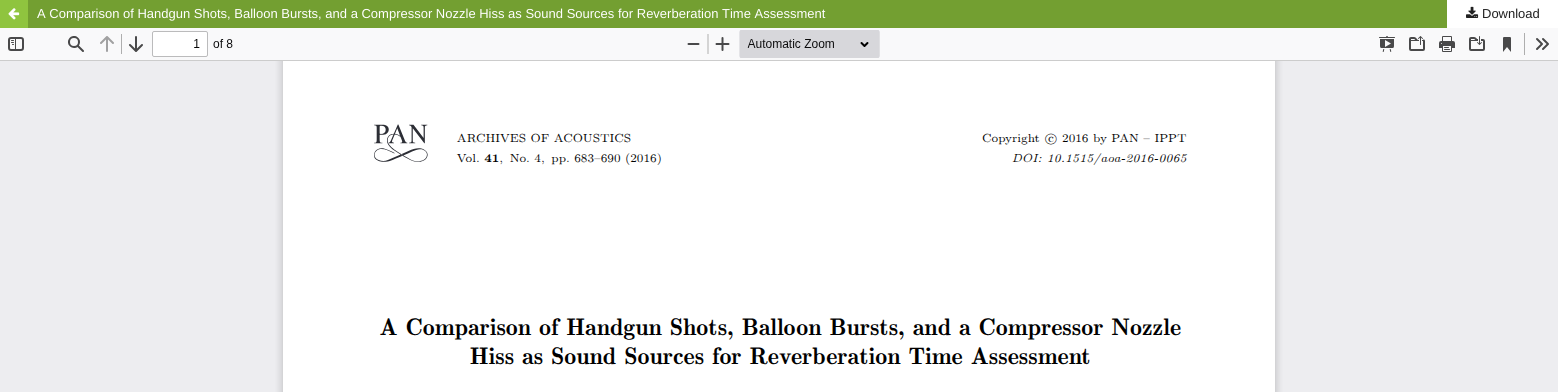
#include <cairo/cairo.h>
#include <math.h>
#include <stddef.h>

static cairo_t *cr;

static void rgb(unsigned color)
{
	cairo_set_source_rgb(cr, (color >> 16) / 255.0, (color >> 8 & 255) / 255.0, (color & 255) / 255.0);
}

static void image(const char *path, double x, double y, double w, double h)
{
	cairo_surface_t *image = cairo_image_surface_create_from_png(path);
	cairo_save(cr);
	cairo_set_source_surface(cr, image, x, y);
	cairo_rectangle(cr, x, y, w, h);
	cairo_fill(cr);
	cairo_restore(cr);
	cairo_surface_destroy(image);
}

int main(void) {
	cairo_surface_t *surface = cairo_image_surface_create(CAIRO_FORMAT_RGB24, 1558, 392);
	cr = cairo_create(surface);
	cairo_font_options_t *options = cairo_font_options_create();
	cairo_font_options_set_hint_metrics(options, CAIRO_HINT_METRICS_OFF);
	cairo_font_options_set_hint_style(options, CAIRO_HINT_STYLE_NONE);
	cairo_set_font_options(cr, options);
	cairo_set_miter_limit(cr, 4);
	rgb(0xffffff);
	cairo_paint(cr);
	rgb(0x739f31);
	cairo_rectangle(cr, 28, 0, 1419, 28);
	cairo_fill(cr);
	rgb(0x8fc43f);
	cairo_rectangle(cr, 0, 0, 28, 28);
	cairo_fill(cr);
	image("img/1.png", 8, 8, 12, 12);
	image("img/2.png", 1466, 6, 13, 12);
	image("img/3.png", 0, 28, 1558, 364);
	cairo_select_font_face(cr, "Liberation Sans", CAIRO_FONT_SLANT_NORMAL, CAIRO_FONT_WEIGHT_NORMAL);
	cairo_set_font_size(cr, 13);
	rgb(0xffffff);
	cairo_move_to(cr, 37, 18);
	cairo_show_text(cr, "A Comparison of Handgun Shots, Balloon Bursts, and a Compressor Nozzle Hiss as Sound Sources for Reverberation Time Assessment");
	rgb(0x212121);
	cairo_move_to(cr, 1482, 18);
	cairo_show_text(cr, "Download");
	cairo_surface_write_to_png(surface, "page.png");
	cairo_font_options_destroy(options);
	cairo_destroy(cr);
	cairo_surface_destroy(surface);
	return 0;
}
